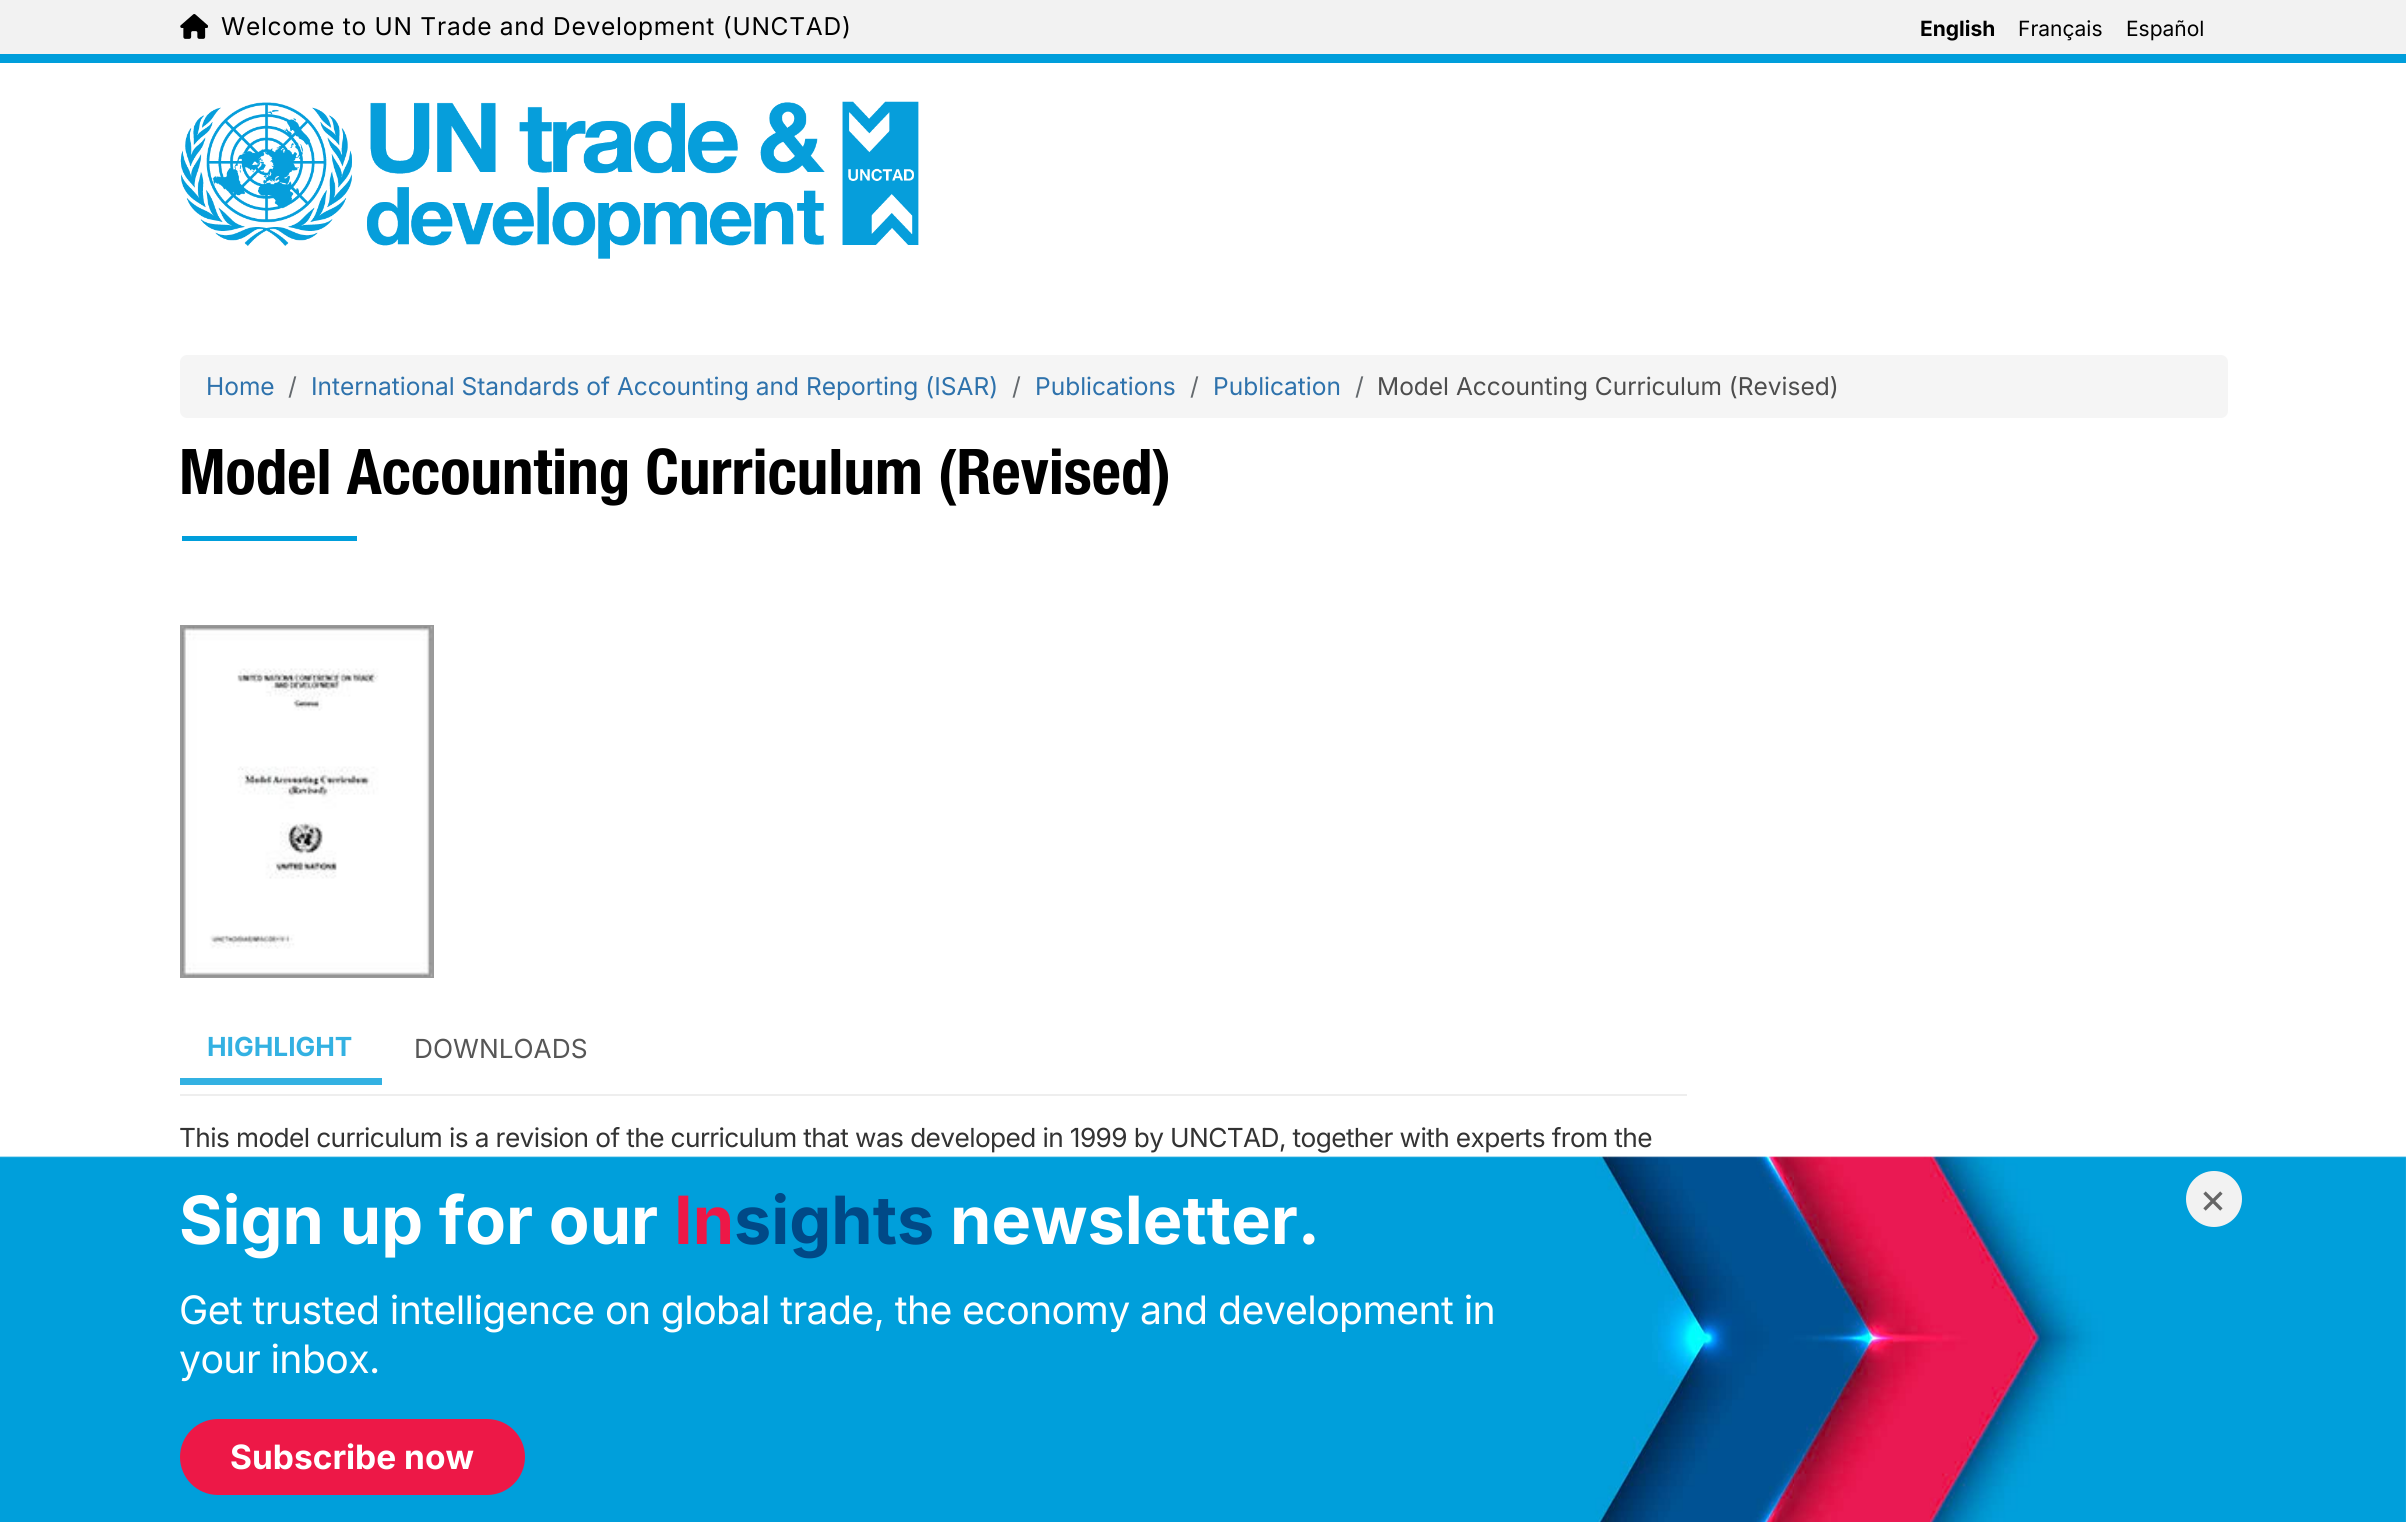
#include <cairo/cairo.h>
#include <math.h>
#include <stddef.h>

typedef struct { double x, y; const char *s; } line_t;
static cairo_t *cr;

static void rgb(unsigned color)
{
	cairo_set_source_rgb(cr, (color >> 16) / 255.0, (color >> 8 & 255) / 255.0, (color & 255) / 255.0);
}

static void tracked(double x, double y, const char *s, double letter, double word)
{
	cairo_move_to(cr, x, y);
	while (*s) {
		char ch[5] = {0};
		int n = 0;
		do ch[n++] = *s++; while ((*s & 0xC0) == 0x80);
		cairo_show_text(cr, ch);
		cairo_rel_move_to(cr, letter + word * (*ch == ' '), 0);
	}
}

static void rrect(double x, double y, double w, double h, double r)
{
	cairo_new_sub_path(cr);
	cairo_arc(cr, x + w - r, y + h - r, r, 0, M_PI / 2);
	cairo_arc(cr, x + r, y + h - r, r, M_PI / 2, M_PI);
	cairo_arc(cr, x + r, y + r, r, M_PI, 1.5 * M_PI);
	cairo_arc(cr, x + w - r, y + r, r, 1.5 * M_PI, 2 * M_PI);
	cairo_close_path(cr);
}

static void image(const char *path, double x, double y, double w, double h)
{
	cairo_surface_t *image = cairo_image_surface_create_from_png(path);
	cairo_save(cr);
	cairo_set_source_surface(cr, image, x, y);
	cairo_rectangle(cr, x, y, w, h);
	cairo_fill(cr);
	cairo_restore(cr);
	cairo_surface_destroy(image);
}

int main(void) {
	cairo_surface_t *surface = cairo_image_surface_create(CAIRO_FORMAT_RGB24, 2406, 1522);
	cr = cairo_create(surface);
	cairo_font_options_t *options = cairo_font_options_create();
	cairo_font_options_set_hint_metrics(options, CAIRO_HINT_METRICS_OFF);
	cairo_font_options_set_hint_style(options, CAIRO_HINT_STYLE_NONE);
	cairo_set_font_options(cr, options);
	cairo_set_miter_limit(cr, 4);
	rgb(0xffffff);
	cairo_paint(cr);
	rgb(0xf2f2f2);
	cairo_rectangle(cr, 0, 0, 2406, 54);
	cairo_fill(cr);
	rgb(0x009edb);
	cairo_rectangle(cr, 0, 54, 2406, 9);
	cairo_fill(cr);
	image("img/1.png", 180, 14, 28, 25);
	image("img/2.png", 180, 101, 739, 158);
	rgb(0xf5f5f5);
	rrect(180, 355, 2048, 63, 7);
	cairo_fill(cr);
	rgb(0x009edb);
	cairo_rectangle(cr, 182, 536, 175, 5);
	cairo_fill(cr);
	cairo_rectangle(cr, 181, 626, 252, 351);
	rgb(0x999999);
	cairo_stroke(cr);
	image("img/3.png", 182, 626, 251, 351);
	rgb(0x33b1e2);
	cairo_rectangle(cr, 180, 1078, 202, 7);
	cairo_fill(cr);
	rgb(0xeeeeee);
	cairo_rectangle(cr, 180, 1094, 1507, 2);
	cairo_fill(cr);
	image("img/4.png", 0, 1156, 2406, 366);
	rgb(0xf2f2f2);
	cairo_arc(cr, 2214, 1199, 28, 0, 2 * M_PI);
	cairo_fill(cr);
	rgb(0xed1847);
	rrect(180, 1419, 345, 76, 38);
	cairo_fill(cr);
	cairo_select_font_face(cr, "Inter", CAIRO_FONT_SLANT_NORMAL, CAIRO_FONT_WEIGHT_NORMAL);
	cairo_set_font_size(cr, 24.5);
	rgb(0x000000);
	tracked(221, 35, "Welcome to UN Trade and Development (UNCTAD)", 0.75, 0);
	cairo_select_font_face(cr, "Inter", CAIRO_FONT_SLANT_NORMAL, CAIRO_FONT_WEIGHT_BOLD);
	cairo_set_font_size(cr, 21);
	cairo_move_to(cr, 1920, 36);
	cairo_show_text(cr, "English");
	cairo_select_font_face(cr, "Inter", CAIRO_FONT_SLANT_NORMAL, CAIRO_FONT_WEIGHT_NORMAL);
	cairo_move_to(cr, 2018, 36);
	cairo_show_text(cr, "Français");
	cairo_move_to(cr, 2126, 36);
	cairo_show_text(cr, "Español");
	cairo_set_font_size(cr, 24.5);
	rgb(0x2e72ac);
	cairo_move_to(cr, 206, 395);
	cairo_show_text(cr, "Home");
	rgb(0x64696d);
	cairo_move_to(cr, 288, 395);
	cairo_show_text(cr, "/");
	rgb(0x2e72ac);
	cairo_move_to(cr, 311, 395);
	cairo_show_text(cr, "International Standards of Accounting and Reporting (ISAR)");
	rgb(0x64696d);
	cairo_move_to(cr, 1012, 395);
	cairo_show_text(cr, "/");
	rgb(0x2e72ac);
	cairo_move_to(cr, 1035, 395);
	cairo_show_text(cr, "Publications");
	rgb(0x64696d);
	cairo_move_to(cr, 1190, 395);
	cairo_show_text(cr, "/");
	rgb(0x2e72ac);
	cairo_move_to(cr, 1213, 395);
	cairo_show_text(cr, "Publication");
	rgb(0x64696d);
	cairo_move_to(cr, 1355, 395);
	cairo_show_text(cr, "/");
	rgb(0x4d4d4d);
	cairo_move_to(cr, 1377, 395);
	cairo_show_text(cr, "Model Accounting Curriculum (Revised)");
	cairo_select_font_face(cr, "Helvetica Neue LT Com", CAIRO_FONT_SLANT_NORMAL, CAIRO_FONT_WEIGHT_BOLD);
	cairo_set_font_size(cr, 63);
	rgb(0x000000);
	cairo_move_to(cr, 179, 494);
	cairo_show_text(cr, "Model Accounting Curriculum (Revised)");
	cairo_select_font_face(cr, "Inter", CAIRO_FONT_SLANT_NORMAL, CAIRO_FONT_WEIGHT_BOLD);
	cairo_set_font_size(cr, 26.25);
	rgb(0x33b1e2);
	cairo_move_to(cr, 207, 1056);
	cairo_show_text(cr, "HIGHLIGHT");
	cairo_select_font_face(cr, "Inter", CAIRO_FONT_SLANT_NORMAL, CAIRO_FONT_WEIGHT_NORMAL);
	rgb(0x565656);
	cairo_move_to(cr, 414, 1058);
	cairo_show_text(cr, "DOWNLOADS");
	rgb(0x333333);
	tracked(179, 1147, "This model curriculum is a revision of the curriculum that was developed in 1999 by UNCTAD, together with experts from the", -0.61, 0);
	cairo_select_font_face(cr, "Inter", CAIRO_FONT_SLANT_NORMAL, CAIRO_FONT_WEIGHT_BOLD);
	cairo_set_font_size(cr, 66.5);
	rgb(0xffffff);
	cairo_move_to(cr, 179, 1244);
	cairo_show_text(cr, "Sign up for our");
	rgb(0xed1847);
	cairo_move_to(cr, 674, 1244);
	cairo_show_text(cr, "In");
	rgb(0x004987);
	cairo_move_to(cr, 734, 1244);
	cairo_show_text(cr, "sights");
	rgb(0xffffff);
	cairo_move_to(cr, 950, 1244);
	cairo_show_text(cr, "newsletter.");
	cairo_select_font_face(cr, "Inter", CAIRO_FONT_SLANT_NORMAL, CAIRO_FONT_WEIGHT_NORMAL);
	cairo_set_font_size(cr, 42);
	rgb(0x666666);
	cairo_move_to(cr, 2199, 1213);
	cairo_show_text(cr, "×");
	cairo_set_font_size(cr, 39.2);
	rgb(0xffffff);
	{
		static const line_t items[] = {
			{179, 1324, "Get trusted intelligence on global trade, the economy and"},
			{1218, 1324, "development in"},
			{179, 1373, "your inbox."},
		};
		for (size_t i = 0; i < sizeof items / sizeof *items; i++) {
			tracked(items[i].x, items[i].y, items[i].s, -0.61, 0);
		}
	}
	cairo_select_font_face(cr, "Inter", CAIRO_FONT_SLANT_NORMAL, CAIRO_FONT_WEIGHT_BOLD);
	cairo_set_font_size(cr, 33.5);
	cairo_move_to(cr, 230, 1469);
	cairo_show_text(cr, "Subscribe now");
	cairo_surface_write_to_png(surface, "page.png");
	cairo_font_options_destroy(options);
	cairo_destroy(cr);
	cairo_surface_destroy(surface);
	return 0;
}
